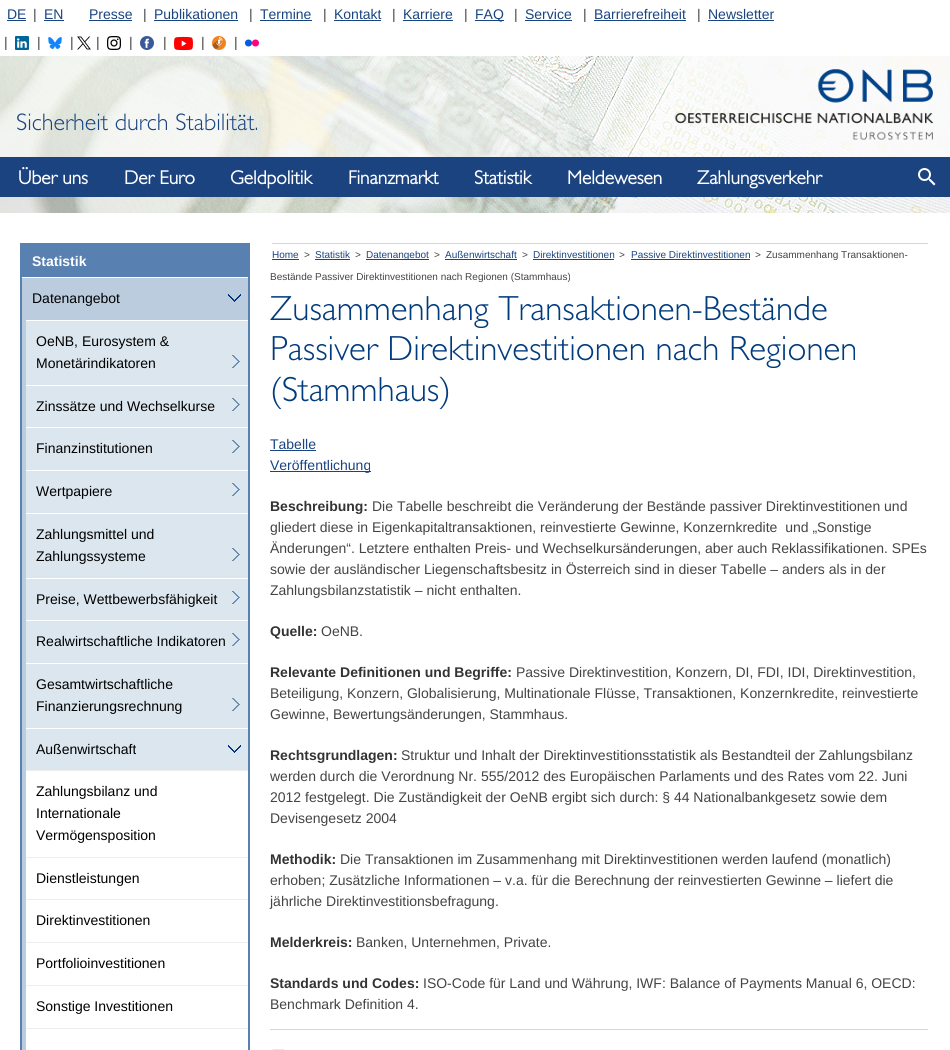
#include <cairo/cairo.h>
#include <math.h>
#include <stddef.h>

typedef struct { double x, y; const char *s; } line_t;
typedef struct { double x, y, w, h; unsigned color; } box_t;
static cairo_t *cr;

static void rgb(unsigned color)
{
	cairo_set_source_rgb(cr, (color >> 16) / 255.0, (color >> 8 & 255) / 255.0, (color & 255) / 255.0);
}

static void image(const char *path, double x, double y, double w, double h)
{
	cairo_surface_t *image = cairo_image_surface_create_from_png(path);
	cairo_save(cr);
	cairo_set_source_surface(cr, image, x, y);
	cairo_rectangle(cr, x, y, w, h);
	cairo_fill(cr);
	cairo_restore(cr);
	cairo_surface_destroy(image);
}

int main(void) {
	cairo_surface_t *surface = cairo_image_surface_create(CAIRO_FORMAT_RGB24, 950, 1050);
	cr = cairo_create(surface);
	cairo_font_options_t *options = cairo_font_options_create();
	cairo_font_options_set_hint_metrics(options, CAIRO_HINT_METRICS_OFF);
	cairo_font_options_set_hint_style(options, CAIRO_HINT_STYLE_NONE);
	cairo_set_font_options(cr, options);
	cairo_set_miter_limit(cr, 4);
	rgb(0xffffff);
	cairo_paint(cr);
	image("img/1.png", 0, 56, 950, 157);
	{
		static const box_t items[] = {
			{7, 20, 19, 1, 0x194481},
			{44, 20, 20, 1, 0x194481},
			{89, 20, 43, 1, 0x194481},
			{154, 20, 84, 1, 0x194481},
			{260, 20, 52, 1, 0x194481},
			{334, 20, 47, 1, 0x194481},
			{403, 20, 50, 1, 0x194481},
			{475, 20, 29, 1, 0x194481},
			{525, 20, 47, 1, 0x194481},
			{594, 20, 92, 1, 0x194481},
			{708, 20, 66, 1, 0x194481},
		};
		for (size_t i = 0; i < sizeof items / sizeof *items; i++) {
			rgb(items[i].color);
			cairo_rectangle(cr, items[i].x, items[i].y, items[i].w, items[i].h);
			cairo_fill(cr);
		}
	}
	image("img/2.png", 15, 36, 14, 14);
	image("img/3.png", 48, 37, 14, 12);
	image("img/4.png", 77, 36, 14, 14);
	image("img/5.png", 107, 36, 14, 14);
	image("img/6.png", 140, 36, 14, 14);
	image("img/7.png", 174, 36, 19, 15);
	image("img/8.png", 212, 36, 14, 14);
	rgb(0x005de1);
	cairo_arc(cr, 248.5, 43, 3.5, 0, 2 * M_PI);
	cairo_fill(cr);
	rgb(0xff007e);
	cairo_arc(cr, 255.5, 43, 3.5, 0, 2 * M_PI);
	cairo_fill(cr);
	cairo_set_source_rgba(cr, 1, 1, 1, 0.6);
	cairo_rectangle(cr, 0, 56, 950, 101);
	cairo_fill(cr);
	image("img/9.png", 675, 69, 259, 71);
	rgb(0x1b4380);
	cairo_rectangle(cr, 0, 157, 950, 40);
	cairo_fill(cr);
	image("img/10.png", 918, 168, 18, 18);
	{
		static const box_t items[] = {
			{20, 243, 230, 807, 0x5880b0},
			{22, 278, 226, 772, 0xbcccdf},
			{22, 277, 226, 1, 0xffffff},
		};
		for (size_t i = 0; i < sizeof items / sizeof *items; i++) {
			rgb(items[i].color);
			cairo_rectangle(cr, items[i].x, items[i].y, items[i].w, items[i].h);
			cairo_fill(cr);
		}
	}
	image("img/11.png", 228, 294, 13, 8);
	rgb(0xdce6ee);
	cairo_rectangle(cr, 26, 321, 222, 64);
	cairo_fill(cr);
	rgb(0xffffff);
	cairo_rectangle(cr, 26, 320, 222, 1);
	cairo_fill(cr);
	image("img/12.png", 232, 355, 8, 13);
	rgb(0xdce6ee);
	cairo_rectangle(cr, 26, 386, 222, 41);
	cairo_fill(cr);
	rgb(0xffffff);
	cairo_rectangle(cr, 26, 385, 222, 1);
	cairo_fill(cr);
	image("img/12.png", 232, 398, 8, 13);
	rgb(0xdce6ee);
	cairo_rectangle(cr, 26, 428, 222, 42);
	cairo_fill(cr);
	rgb(0xffffff);
	cairo_rectangle(cr, 26, 427, 222, 1);
	cairo_fill(cr);
	image("img/12.png", 232, 440, 8, 13);
	rgb(0xdce6ee);
	cairo_rectangle(cr, 26, 471, 222, 42);
	cairo_fill(cr);
	rgb(0xffffff);
	cairo_rectangle(cr, 26, 470, 222, 1);
	cairo_fill(cr);
	image("img/12.png", 232, 483, 8, 13);
	rgb(0xdce6ee);
	cairo_rectangle(cr, 26, 514, 222, 64);
	cairo_fill(cr);
	rgb(0xffffff);
	cairo_rectangle(cr, 26, 513, 222, 1);
	cairo_fill(cr);
	image("img/12.png", 232, 548, 8, 13);
	rgb(0xdce6ee);
	cairo_rectangle(cr, 26, 579, 222, 41);
	cairo_fill(cr);
	rgb(0xffffff);
	cairo_rectangle(cr, 26, 578, 222, 1);
	cairo_fill(cr);
	image("img/12.png", 232, 591, 8, 13);
	rgb(0xdce6ee);
	cairo_rectangle(cr, 26, 621, 222, 42);
	cairo_fill(cr);
	rgb(0xffffff);
	cairo_rectangle(cr, 26, 620, 222, 1);
	cairo_fill(cr);
	image("img/12.png", 232, 633, 8, 13);
	rgb(0xdce6ee);
	cairo_rectangle(cr, 26, 664, 222, 64);
	cairo_fill(cr);
	rgb(0xffffff);
	cairo_rectangle(cr, 26, 663, 222, 1);
	cairo_fill(cr);
	image("img/12.png", 232, 698, 8, 13);
	rgb(0xdce6ee);
	cairo_rectangle(cr, 26, 729, 222, 41);
	cairo_fill(cr);
	rgb(0xffffff);
	cairo_rectangle(cr, 26, 728, 222, 1);
	cairo_fill(cr);
	image("img/13.png", 228, 745, 13, 8);
	{
		static const box_t items[] = {
			{26, 770, 222, 1, 0xeeeeee},
			{26, 771, 222, 86, 0xffffff},
			{26, 857, 222, 1, 0xeeeeee},
			{26, 858, 222, 41, 0xffffff},
			{26, 899, 222, 1, 0xeeeeee},
			{26, 900, 222, 42, 0xffffff},
			{26, 942, 222, 1, 0xeeeeee},
			{26, 943, 222, 42, 0xffffff},
			{26, 985, 222, 1, 0xeeeeee},
			{26, 986, 222, 42, 0xffffff},
			{26, 1028, 222, 1, 0xeeeeee},
			{26, 1029, 222, 21, 0xffffff},
			{272, 243, 656, 1, 0xd6d6d6},
			{272, 259, 27, 1, 0x194481},
			{315, 259, 35, 1, 0x194481},
			{366, 259, 63, 1, 0x194481},
			{445, 259, 72, 1, 0x194481},
			{533, 259, 81, 1, 0x194481},
			{631, 259, 119, 1, 0x194481},
			{270, 450, 46, 1, 0x194481},
			{270, 471, 101, 1, 0x194481},
			{270, 1029, 658, 1, 0xd6d6d6},
		};
		for (size_t i = 0; i < sizeof items / sizeof *items; i++) {
			rgb(items[i].color);
			cairo_rectangle(cr, items[i].x, items[i].y, items[i].w, items[i].h);
			cairo_fill(cr);
		}
	}
	image("img/14.png", 272, 1049, 13, 1);
	cairo_select_font_face(cr, "Liberation Sans", CAIRO_FONT_SLANT_NORMAL, CAIRO_FONT_WEIGHT_NORMAL);
	cairo_set_font_size(cr, 14);
	rgb(0x194481);
	cairo_move_to(cr, 7, 19);
	cairo_show_text(cr, "DE");
	rgb(0x444444);
	cairo_move_to(cr, 33, 19);
	cairo_show_text(cr, "|");
	rgb(0x194481);
	cairo_move_to(cr, 44, 19);
	cairo_show_text(cr, "EN");
	cairo_move_to(cr, 89, 19);
	cairo_show_text(cr, "Presse");
	rgb(0x444444);
	cairo_move_to(cr, 143, 19);
	cairo_show_text(cr, "|");
	rgb(0x194481);
	cairo_move_to(cr, 154, 19);
	cairo_show_text(cr, "Publikationen");
	rgb(0x444444);
	cairo_move_to(cr, 249, 19);
	cairo_show_text(cr, "|");
	rgb(0x194481);
	cairo_move_to(cr, 260, 19);
	cairo_show_text(cr, "Termine");
	rgb(0x444444);
	cairo_move_to(cr, 323, 19);
	cairo_show_text(cr, "|");
	rgb(0x194481);
	cairo_move_to(cr, 334, 19);
	cairo_show_text(cr, "Kontakt");
	rgb(0x444444);
	cairo_move_to(cr, 392, 19);
	cairo_show_text(cr, "|");
	rgb(0x194481);
	cairo_move_to(cr, 403, 19);
	cairo_show_text(cr, "Karriere");
	rgb(0x444444);
	cairo_move_to(cr, 464, 19);
	cairo_show_text(cr, "|");
	rgb(0x194481);
	cairo_move_to(cr, 475, 19);
	cairo_show_text(cr, "FAQ");
	rgb(0x444444);
	cairo_move_to(cr, 514, 19);
	cairo_show_text(cr, "|");
	rgb(0x194481);
	cairo_move_to(cr, 525, 19);
	cairo_show_text(cr, "Service");
	rgb(0x444444);
	cairo_move_to(cr, 583, 19);
	cairo_show_text(cr, "|");
	rgb(0x194481);
	cairo_move_to(cr, 594, 19);
	cairo_show_text(cr, "Barrierefreiheit");
	rgb(0x444444);
	cairo_move_to(cr, 697, 19);
	cairo_show_text(cr, "|");
	rgb(0x194481);
	cairo_move_to(cr, 708, 19);
	cairo_show_text(cr, "Newsletter");
	rgb(0x444444);
	{
		static const line_t items[] = {
			{4, 47, "|"},
			{37, 47, "|"},
			{70, 47, "|"},
			{96, 47, "|"},
			{129, 47, "|"},
			{163, 47, "|"},
			{201, 47, "|"},
			{234, 47, "|"},
		};
		for (size_t i = 0; i < sizeof items / sizeof *items; i++) {
			cairo_move_to(cr, items[i].x, items[i].y);
			cairo_show_text(cr, items[i].s);
		}
	}
	cairo_select_font_face(cr, "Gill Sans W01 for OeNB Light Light", CAIRO_FONT_SLANT_NORMAL, CAIRO_FONT_WEIGHT_NORMAL);
	cairo_set_font_size(cr, 24);
	rgb(0x194481);
	cairo_move_to(cr, 16, 130);
	cairo_show_text(cr, "Sicherheit durch Stabilität.");
	cairo_select_font_face(cr, "Gill Sans W01 for OeNB Light", CAIRO_FONT_SLANT_NORMAL, CAIRO_FONT_WEIGHT_BOLD);
	cairo_set_font_size(cr, 19.25);
	rgb(0xffffff);
	{
		static const line_t items[] = {
			{18, 184, "Über uns"},
			{124, 184, "Der Euro"},
			{230, 184, "Geldpolitik"},
			{348, 184, "Finanzmarkt"},
			{474, 184, "Statistik"},
			{567, 184, "Meldewesen"},
			{697, 184, "Zahlungsverkehr"},
		};
		for (size_t i = 0; i < sizeof items / sizeof *items; i++) {
			cairo_move_to(cr, items[i].x, items[i].y);
			cairo_show_text(cr, items[i].s);
		}
	}
	cairo_select_font_face(cr, "Liberation Sans", CAIRO_FONT_SLANT_NORMAL, CAIRO_FONT_WEIGHT_BOLD);
	cairo_set_font_size(cr, 14);
	cairo_move_to(cr, 32, 266);
	cairo_show_text(cr, "Statistik");
	cairo_select_font_face(cr, "Liberation Sans", CAIRO_FONT_SLANT_NORMAL, CAIRO_FONT_WEIGHT_NORMAL);
	rgb(0x000000);
	{
		static const line_t items[] = {
			{32, 303, "Datenangebot"},
			{36, 346, "OeNB, Eurosystem &"},
			{36, 368, "Monetärindikatoren"},
			{36, 411, "Zinssätze und Wechselkurse"},
			{36, 453, "Finanzinstitutionen"},
			{36, 496, "Wertpapiere"},
			{36, 539, "Zahlungsmittel und"},
			{36, 561, "Zahlungssysteme"},
			{36, 604, "Preise, Wettbewerbsfähigkeit"},
			{36, 646, "Realwirtschaftliche Indikatoren"},
			{36, 689, "Gesamtwirtschaftliche"},
			{36, 711, "Finanzierungsrechnung"},
			{36, 754, "Außenwirtschaft"},
			{36, 796, "Zahlungsbilanz und"},
			{36, 818, "Internationale"},
			{36, 840, "Vermögensposition"},
			{36, 883, "Dienstleistungen"},
			{36, 925, "Direktinvestitionen"},
			{36, 968, "Portfolioinvestitionen"},
			{36, 1011, "Sonstige Investitionen"},
		};
		for (size_t i = 0; i < sizeof items / sizeof *items; i++) {
			cairo_move_to(cr, items[i].x, items[i].y);
			cairo_show_text(cr, items[i].s);
		}
	}
	cairo_set_font_size(cr, 10);
	rgb(0x194481);
	cairo_move_to(cr, 272, 258);
	cairo_show_text(cr, "Home");
	rgb(0x444444);
	cairo_move_to(cr, 304, 258);
	cairo_show_text(cr, ">");
	rgb(0x194481);
	cairo_move_to(cr, 315, 258);
	cairo_show_text(cr, "Statistik");
	rgb(0x444444);
	cairo_move_to(cr, 355, 258);
	cairo_show_text(cr, ">");
	rgb(0x194481);
	cairo_move_to(cr, 366, 258);
	cairo_show_text(cr, "Datenangebot");
	rgb(0x444444);
	cairo_move_to(cr, 434, 258);
	cairo_show_text(cr, ">");
	rgb(0x194481);
	cairo_move_to(cr, 445, 258);
	cairo_show_text(cr, "Außenwirtschaft");
	rgb(0x444444);
	cairo_move_to(cr, 522, 258);
	cairo_show_text(cr, ">");
	rgb(0x194481);
	cairo_move_to(cr, 533, 258);
	cairo_show_text(cr, "Direktinvestitionen");
	rgb(0x444444);
	cairo_move_to(cr, 619, 258);
	cairo_show_text(cr, ">");
	rgb(0x194481);
	cairo_move_to(cr, 631, 258);
	cairo_show_text(cr, "Passive Direktinvestitionen");
	rgb(0x444444);
	{
		static const line_t items[] = {
			{755, 258, ">"},
			{766, 258, "Zusammenhang Transaktionen-"},
			{270, 280, "Bestände Passiver Direktinvestitionen nach Regionen (Stammhaus)"},
		};
		for (size_t i = 0; i < sizeof items / sizeof *items; i++) {
			cairo_move_to(cr, items[i].x, items[i].y);
			cairo_show_text(cr, items[i].s);
		}
	}
	cairo_select_font_face(cr, "Gill Sans W01 for OeNB Light Light", CAIRO_FONT_SLANT_NORMAL, CAIRO_FONT_WEIGHT_NORMAL);
	cairo_set_font_size(cr, 35);
	rgb(0x003b7d);
	{
		static const line_t items[] = {
			{270, 320, "Zusammenhang Transaktionen-Bestände"},
			{270, 360, "Passiver Direktinvestitionen nach Regionen"},
			{270, 401, "(Stammhaus)"},
		};
		for (size_t i = 0; i < sizeof items / sizeof *items; i++) {
			cairo_move_to(cr, items[i].x, items[i].y);
			cairo_show_text(cr, items[i].s);
		}
	}
	cairo_select_font_face(cr, "Liberation Sans", CAIRO_FONT_SLANT_NORMAL, CAIRO_FONT_WEIGHT_NORMAL);
	cairo_set_font_size(cr, 14);
	rgb(0x194481);
	cairo_move_to(cr, 270, 449);
	cairo_show_text(cr, "Tabelle");
	cairo_move_to(cr, 270, 470);
	cairo_show_text(cr, "Veröffentlichung");
	cairo_select_font_face(cr, "Liberation Sans", CAIRO_FONT_SLANT_NORMAL, CAIRO_FONT_WEIGHT_BOLD);
	rgb(0x333333);
	cairo_move_to(cr, 270, 511);
	cairo_show_text(cr, "Beschreibung:");
	cairo_select_font_face(cr, "Liberation Sans", CAIRO_FONT_SLANT_NORMAL, CAIRO_FONT_WEIGHT_NORMAL);
	rgb(0x444444);
	{
		static const line_t items[] = {
			{372, 511, "Die Tabelle beschreibt die Veränderung der Bestände passiver Direktinvestitionen und"},
			{270, 532, "gliedert diese in Eigenkapitaltransaktionen, reinvestierte Gewinne, Konzernkredite  und „Sonstige"},
			{270, 553, "Änderungen“. Letztere enthalten Preis- und Wechselkursänderungen, aber auch Reklassifikationen. SPEs"},
			{270, 574, "sowie der ausländischer Liegenschaftsbesitz in Österreich sind in dieser Tabelle – anders als in der"},
			{270, 595, "Zahlungsbilanzstatistik – nicht enthalten."},
		};
		for (size_t i = 0; i < sizeof items / sizeof *items; i++) {
			cairo_move_to(cr, items[i].x, items[i].y);
			cairo_show_text(cr, items[i].s);
		}
	}
	cairo_select_font_face(cr, "Liberation Sans", CAIRO_FONT_SLANT_NORMAL, CAIRO_FONT_WEIGHT_BOLD);
	rgb(0x333333);
	cairo_move_to(cr, 270, 636);
	cairo_show_text(cr, "Quelle:");
	cairo_select_font_face(cr, "Liberation Sans", CAIRO_FONT_SLANT_NORMAL, CAIRO_FONT_WEIGHT_NORMAL);
	rgb(0x444444);
	cairo_move_to(cr, 321, 636);
	cairo_show_text(cr, "OeNB.");
	cairo_select_font_face(cr, "Liberation Sans", CAIRO_FONT_SLANT_NORMAL, CAIRO_FONT_WEIGHT_BOLD);
	rgb(0x333333);
	cairo_move_to(cr, 270, 677);
	cairo_show_text(cr, "Relevante Definitionen und Begriffe:");
	cairo_select_font_face(cr, "Liberation Sans", CAIRO_FONT_SLANT_NORMAL, CAIRO_FONT_WEIGHT_NORMAL);
	rgb(0x444444);
	{
		static const line_t items[] = {
			{516, 677, "Passive Direktinvestition, Konzern, DI, FDI, IDI, Direktinvestition,"},
			{270, 698, "Beteiligung, Konzern, Globalisierung, Multinationale Flüsse, Transaktionen, Konzernkredite, reinvestierte"},
			{270, 719, "Gewinne, Bewertungsänderungen, Stammhaus."},
		};
		for (size_t i = 0; i < sizeof items / sizeof *items; i++) {
			cairo_move_to(cr, items[i].x, items[i].y);
			cairo_show_text(cr, items[i].s);
		}
	}
	cairo_select_font_face(cr, "Liberation Sans", CAIRO_FONT_SLANT_NORMAL, CAIRO_FONT_WEIGHT_BOLD);
	rgb(0x333333);
	cairo_move_to(cr, 270, 760);
	cairo_show_text(cr, "Rechtsgrundlagen:");
	cairo_select_font_face(cr, "Liberation Sans", CAIRO_FONT_SLANT_NORMAL, CAIRO_FONT_WEIGHT_NORMAL);
	rgb(0x444444);
	{
		static const line_t items[] = {
			{401, 760, "Struktur und Inhalt der Direktinvestitionsstatistik als Bestandteil der Zahlungsbilanz"},
			{270, 781, "werden durch die Verordnung Nr. 555/2012 des Europäischen Parlaments und des Rates vom 22. Juni"},
			{270, 802, "2012 festgelegt. Die Zuständigkeit der OeNB ergibt sich durch: § 44 Nationalbankgesetz sowie dem"},
			{270, 823, "Devisengesetz 2004"},
		};
		for (size_t i = 0; i < sizeof items / sizeof *items; i++) {
			cairo_move_to(cr, items[i].x, items[i].y);
			cairo_show_text(cr, items[i].s);
		}
	}
	cairo_select_font_face(cr, "Liberation Sans", CAIRO_FONT_SLANT_NORMAL, CAIRO_FONT_WEIGHT_BOLD);
	rgb(0x333333);
	cairo_move_to(cr, 270, 864);
	cairo_show_text(cr, "Methodik:");
	cairo_select_font_face(cr, "Liberation Sans", CAIRO_FONT_SLANT_NORMAL, CAIRO_FONT_WEIGHT_NORMAL);
	rgb(0x444444);
	{
		static const line_t items[] = {
			{340, 864, "Die Transaktionen im Zusammenhang mit Direktinvestitionen werden laufend (monatlich)"},
			{270, 885, "erhoben; Zusätzliche Informationen – v.a. für die Berechnung der reinvestierten Gewinne – liefert die"},
			{270, 906, "jährliche Direktinvestitionsbefragung."},
		};
		for (size_t i = 0; i < sizeof items / sizeof *items; i++) {
			cairo_move_to(cr, items[i].x, items[i].y);
			cairo_show_text(cr, items[i].s);
		}
	}
	cairo_select_font_face(cr, "Liberation Sans", CAIRO_FONT_SLANT_NORMAL, CAIRO_FONT_WEIGHT_BOLD);
	rgb(0x333333);
	cairo_move_to(cr, 270, 947);
	cairo_show_text(cr, "Melderkreis:");
	cairo_select_font_face(cr, "Liberation Sans", CAIRO_FONT_SLANT_NORMAL, CAIRO_FONT_WEIGHT_NORMAL);
	rgb(0x444444);
	cairo_move_to(cr, 356, 947);
	cairo_show_text(cr, "Banken, Unternehmen, Private.");
	cairo_select_font_face(cr, "Liberation Sans", CAIRO_FONT_SLANT_NORMAL, CAIRO_FONT_WEIGHT_BOLD);
	rgb(0x333333);
	cairo_move_to(cr, 270, 988);
	cairo_show_text(cr, "Standards und Codes:");
	cairo_select_font_face(cr, "Liberation Sans", CAIRO_FONT_SLANT_NORMAL, CAIRO_FONT_WEIGHT_NORMAL);
	rgb(0x444444);
	cairo_move_to(cr, 423, 988);
	cairo_show_text(cr, "ISO-Code für Land und Währung, IWF: Balance of Payments Manual 6, OECD:");
	cairo_move_to(cr, 270, 1009);
	cairo_show_text(cr, "Benchmark Definition 4.");
	cairo_surface_write_to_png(surface, "page.png");
	cairo_font_options_destroy(options);
	cairo_destroy(cr);
	cairo_surface_destroy(surface);
	return 0;
}
